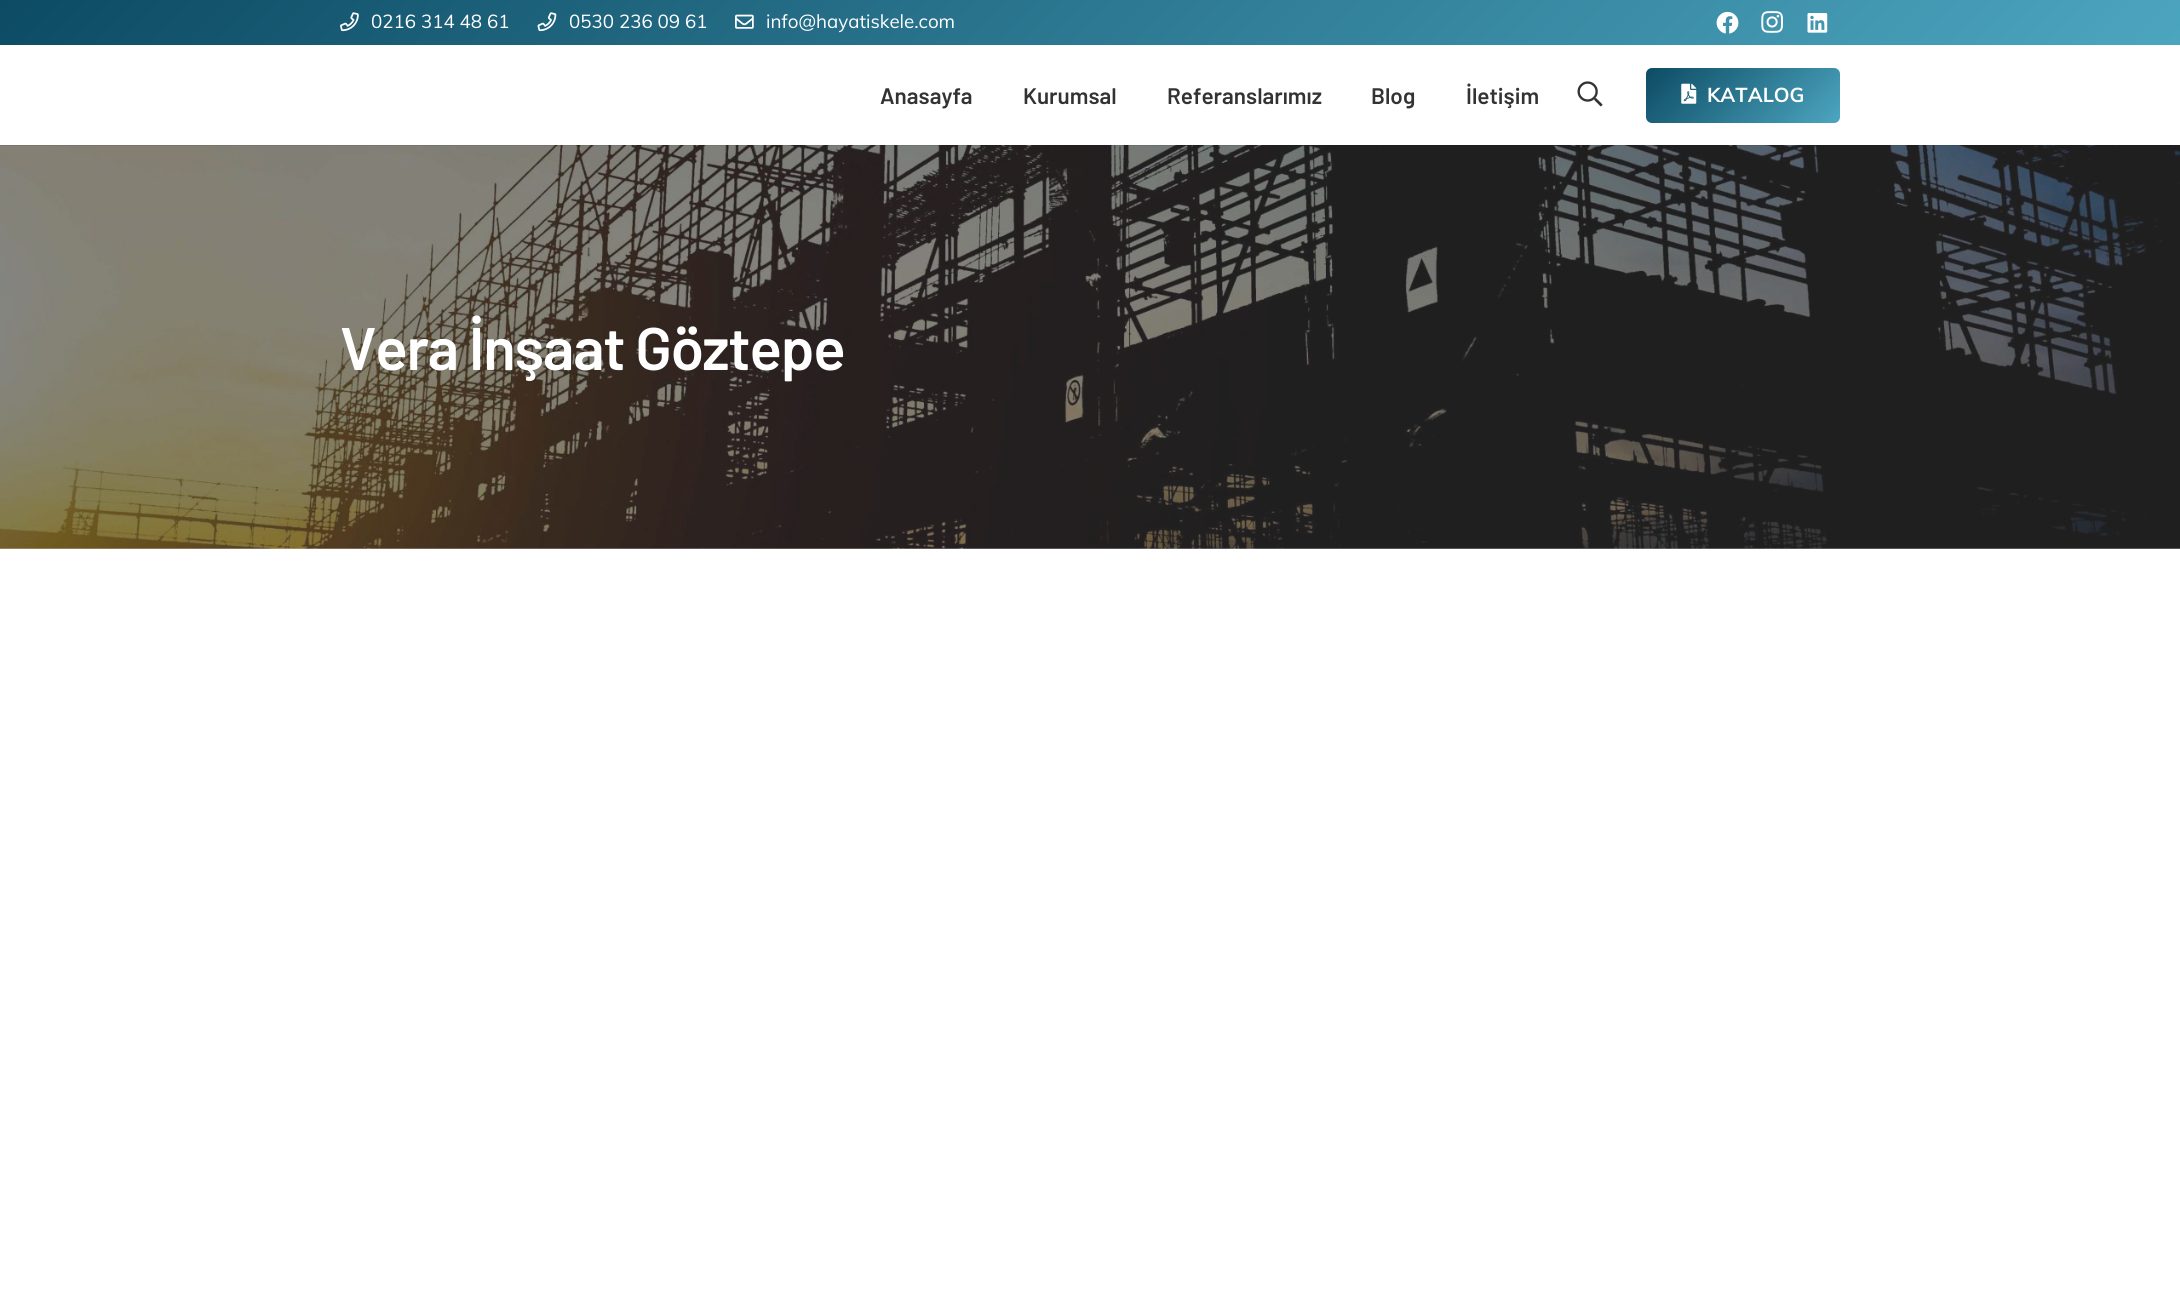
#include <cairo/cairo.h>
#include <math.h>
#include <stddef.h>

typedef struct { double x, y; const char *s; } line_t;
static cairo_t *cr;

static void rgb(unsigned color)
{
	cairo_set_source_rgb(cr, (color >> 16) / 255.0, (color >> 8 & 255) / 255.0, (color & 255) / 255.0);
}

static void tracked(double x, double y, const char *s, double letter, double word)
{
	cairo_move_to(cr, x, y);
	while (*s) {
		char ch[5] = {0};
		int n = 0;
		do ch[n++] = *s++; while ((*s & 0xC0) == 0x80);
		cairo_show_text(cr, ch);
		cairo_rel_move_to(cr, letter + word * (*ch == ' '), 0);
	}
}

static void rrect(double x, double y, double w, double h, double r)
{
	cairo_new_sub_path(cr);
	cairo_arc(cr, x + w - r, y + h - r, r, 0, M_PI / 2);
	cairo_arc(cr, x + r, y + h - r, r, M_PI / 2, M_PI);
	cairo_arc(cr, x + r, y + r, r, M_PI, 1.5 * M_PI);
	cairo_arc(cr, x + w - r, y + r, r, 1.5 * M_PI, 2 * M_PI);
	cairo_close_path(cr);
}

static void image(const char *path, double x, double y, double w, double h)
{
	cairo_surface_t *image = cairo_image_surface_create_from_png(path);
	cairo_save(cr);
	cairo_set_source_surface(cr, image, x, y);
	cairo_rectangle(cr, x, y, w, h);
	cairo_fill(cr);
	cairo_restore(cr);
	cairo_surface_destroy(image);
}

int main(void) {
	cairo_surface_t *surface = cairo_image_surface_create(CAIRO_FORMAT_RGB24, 2180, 1290);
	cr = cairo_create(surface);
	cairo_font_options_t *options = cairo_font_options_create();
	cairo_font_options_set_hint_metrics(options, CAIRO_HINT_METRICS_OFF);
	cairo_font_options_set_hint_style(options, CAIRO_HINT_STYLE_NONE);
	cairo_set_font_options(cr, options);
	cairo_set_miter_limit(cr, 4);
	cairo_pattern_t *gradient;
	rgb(0xffffff);
	cairo_paint(cr);
	gradient = cairo_pattern_create_linear(534, -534, 1646, 579);
	cairo_pattern_add_color_stop_rgba(gradient, 0, 0.051, 0.294, 0.392, 1);
	cairo_pattern_add_color_stop_rgba(gradient, 1, 0.298, 0.647, 0.749, 1);
	cairo_set_source(cr, gradient);
	cairo_pattern_destroy(gradient);
	cairo_rectangle(cr, 0, 0, 2180, 45);
	cairo_fill(cr);
	image("img/1.png", 340, 12, 19, 20);
	image("img/2.png", 537, 12, 20, 20);
	image("img/3.png", 735, 14, 19, 15);
	image("img/4.png", 1716, 11, 23, 23);
	image("img/5.png", 1761, 11, 22, 22);
	image("img/6.png", 1807, 13, 21, 20);
	image("img/9.png", 0, 145, 2180, 404);
	cairo_set_source_rgba(cr, 0, 0, 0, 0.08);
	cairo_rectangle(cr, 0, 145, 2180, 1);
	cairo_fill(cr);
	image("img/7.png", 1577, 81, 26, 26);
	gradient = cairo_pattern_create_linear(1681, 33, 1805, 157);
	cairo_pattern_add_color_stop_rgba(gradient, 0, 0.051, 0.294, 0.392, 1);
	cairo_pattern_add_color_stop_rgba(gradient, 1, 0.298, 0.647, 0.749, 1);
	cairo_set_source(cr, gradient);
	cairo_pattern_destroy(gradient);
	rrect(1646, 68, 194, 55, 6);
	cairo_fill(cr);
	image("img/8.png", 1681, 83, 16, 21);
	cairo_select_font_face(cr, "Muli", CAIRO_FONT_SLANT_NORMAL, CAIRO_FONT_WEIGHT_NORMAL);
	cairo_set_font_size(cr, 18.75);
	rgb(0xffffff);
	{
		static const line_t items[] = {
			{371, 28, "0216 314 48 61"},
			{569, 28, "0530 236 09 61"},
			{766, 28, "info@hayatiskele.com"},
		};
		for (size_t i = 0; i < sizeof items / sizeof *items; i++) {
			cairo_move_to(cr, items[i].x, items[i].y);
			cairo_show_text(cr, items[i].s);
		}
	}
	cairo_select_font_face(cr, "Barlow SemiBold", CAIRO_FONT_SLANT_NORMAL, CAIRO_FONT_WEIGHT_NORMAL);
	cairo_set_font_size(cr, 22.5);
	rgb(0x333333);
	{
		static const line_t items[] = {
			{880, 104, "Anasayfa"},
			{1023, 104, "Kurumsal"},
			{1167, 104, "Referanslarımız"},
			{1371, 104, "Blog"},
			{1466, 104, "İletişim"},
		};
		for (size_t i = 0; i < sizeof items / sizeof *items; i++) {
			cairo_move_to(cr, items[i].x, items[i].y);
			cairo_show_text(cr, items[i].s);
		}
	}
	cairo_select_font_face(cr, "Muli", CAIRO_FONT_SLANT_NORMAL, CAIRO_FONT_WEIGHT_BOLD);
	cairo_set_font_size(cr, 20);
	rgb(0xffffff);
	cairo_move_to(cr, 1707, 102);
	cairo_show_text(cr, "KATALOG");
	cairo_select_font_face(cr, "Barlow SemiBold", CAIRO_FONT_SLANT_NORMAL, CAIRO_FONT_WEIGHT_NORMAL);
	cairo_set_font_size(cr, 60);
	tracked(340, 370, "Vera İnşaat Göztepe", -1.25, 0);
	cairo_surface_write_to_png(surface, "page.png");
	cairo_font_options_destroy(options);
	cairo_destroy(cr);
	cairo_surface_destroy(surface);
	return 0;
}
